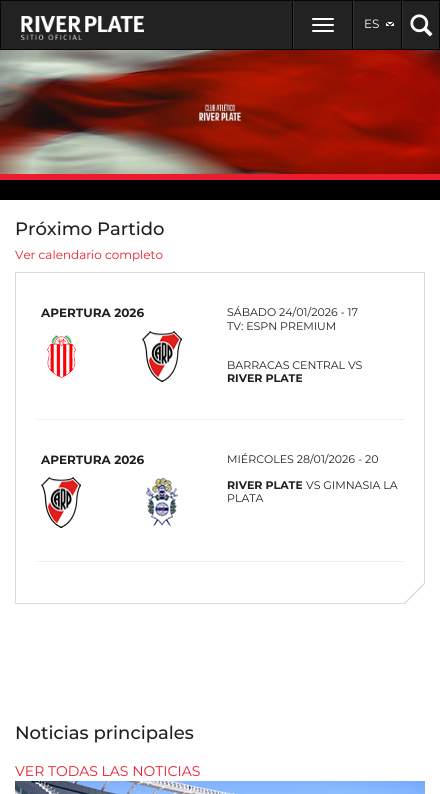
#include <cairo/cairo.h>
#include <math.h>
#include <stddef.h>

typedef struct { double x, y; const char *s; } line_t;
typedef struct { double x, y, w, h; unsigned color; } box_t;
static cairo_t *cr;

static void rgb(unsigned color)
{
	cairo_set_source_rgb(cr, (color >> 16) / 255.0, (color >> 8 & 255) / 255.0, (color & 255) / 255.0);
}

static void rrect(double x, double y, double w, double h, double r)
{
	cairo_new_sub_path(cr);
	cairo_arc(cr, x + w - r, y + h - r, r, 0, M_PI / 2);
	cairo_arc(cr, x + r, y + h - r, r, M_PI / 2, M_PI);
	cairo_arc(cr, x + r, y + r, r, M_PI, 1.5 * M_PI);
	cairo_arc(cr, x + w - r, y + r, r, 1.5 * M_PI, 2 * M_PI);
	cairo_close_path(cr);
}

static void image(const char *path, double x, double y, double w, double h)
{
	cairo_surface_t *image = cairo_image_surface_create_from_png(path);
	cairo_save(cr);
	cairo_set_source_surface(cr, image, x, y);
	cairo_rectangle(cr, x, y, w, h);
	cairo_fill(cr);
	cairo_restore(cr);
	cairo_surface_destroy(image);
}

int main(void) {
	cairo_surface_t *surface = cairo_image_surface_create(CAIRO_FORMAT_RGB24, 440, 794);
	cr = cairo_create(surface);
	cairo_font_options_t *options = cairo_font_options_create();
	cairo_font_options_set_hint_metrics(options, CAIRO_HINT_METRICS_OFF);
	cairo_font_options_set_hint_style(options, CAIRO_HINT_STYLE_NONE);
	cairo_set_font_options(cr, options);
	cairo_set_miter_limit(cr, 4);
	rgb(0xffffff);
	cairo_paint(cr);
	rgb(0x222222);
	cairo_rectangle(cr, 0.5, 0.5, 439, 49);
	cairo_fill_preserve(cr);
	rgb(0x080808);
	cairo_set_line_width(cr, 1);
	cairo_stroke(cr);
	image("img/1.png", 21, 16, 123, 24);
	{
		static const box_t items[] = {
			{292, 1, 1, 48, 0x000000},
			{352, 1, 1, 48, 0x000000},
			{293, 1, 1, 48, 0x323232},
		};
		for (size_t i = 0; i < sizeof items / sizeof *items; i++) {
			rgb(items[i].color);
			cairo_rectangle(cr, items[i].x, items[i].y, items[i].w, items[i].h);
			cairo_fill(cr);
		}
	}
	rgb(0xffffff);
	rrect(312, 18, 22, 2, 1);
	cairo_fill(cr);
	rrect(312, 24, 22, 2, 1);
	cairo_fill(cr);
	rrect(312, 30, 22, 2, 1);
	cairo_fill(cr);
	rgb(0x000000);
	cairo_rectangle(cr, 401, 1, 1, 48);
	cairo_fill(cr);
	rgb(0x323232);
	cairo_rectangle(cr, 353, 1, 1, 48);
	cairo_fill(cr);
	image("img/2.png", 386, 22, 8, 4);
	cairo_rectangle(cr, 402, 1, 1, 46);
	cairo_fill(cr);
	image("img/3.png", 410, 14, 23, 23);
	image("img/4.png", 0, 50, 440, 124);
	rgb(0xed1b2e);
	cairo_rectangle(cr, 0, 174, 440, 6);
	cairo_fill(cr);
	rgb(0x000000);
	cairo_rectangle(cr, 0, 180, 440, 20);
	cairo_fill(cr);
	cairo_rectangle(cr, 15.5, 272.5, 409, 331);
	rgb(0xdcdcdc);
	cairo_stroke(cr);
	image("img/5.png", 47, 335, 29, 43);
	image("img/6.png", 142, 331, 40, 51);
	rgb(0xeeeeee);
	cairo_rectangle(cr, 37, 419, 367, 1);
	cairo_fill(cr);
	image("img/6.png", 41, 477, 40, 51);
	image("img/7.png", 146, 478, 32, 48);
	cairo_rectangle(cr, 37, 561, 367, 1);
	cairo_fill(cr);
	rgb(0xdcdcdc);
	cairo_new_path(cr);
	cairo_move_to(cr, 424, 603);
	cairo_line_to(cr, 404, 603);
	cairo_line_to(cr, 424, 583);
	cairo_close_path(cr);
	cairo_fill(cr);
	rgb(0xffffff);
	cairo_new_path(cr);
	cairo_move_to(cr, 425, 604);
	cairo_line_to(cr, 405, 604);
	cairo_line_to(cr, 425, 584);
	cairo_close_path(cr);
	cairo_fill(cr);
	image("img/8.png", 15, 781, 410, 13);
	cairo_select_font_face(cr, "Montserrat", CAIRO_FONT_SLANT_NORMAL, CAIRO_FONT_WEIGHT_NORMAL);
	cairo_set_font_size(cr, 12);
	cairo_move_to(cr, 364, 28);
	cairo_show_text(cr, "ES");
	cairo_select_font_face(cr, "Montserrat Medium", CAIRO_FONT_SLANT_NORMAL, CAIRO_FONT_WEIGHT_NORMAL);
	cairo_set_font_size(cr, 18);
	rgb(0x1f1f1f);
	cairo_move_to(cr, 15, 235);
	cairo_show_text(cr, "Próximo Partido");
	cairo_select_font_face(cr, "Montserrat", CAIRO_FONT_SLANT_NORMAL, CAIRO_FONT_WEIGHT_NORMAL);
	cairo_set_font_size(cr, 12);
	rgb(0xed1b2e);
	cairo_move_to(cr, 15, 259);
	cairo_show_text(cr, "Ver calendario completo");
	cairo_select_font_face(cr, "Montserrat", CAIRO_FONT_SLANT_NORMAL, CAIRO_FONT_WEIGHT_BOLD);
	rgb(0x1f1f1f);
	cairo_move_to(cr, 41, 317);
	cairo_show_text(cr, "APERTURA 2026");
	cairo_select_font_face(cr, "Montserrat", CAIRO_FONT_SLANT_NORMAL, CAIRO_FONT_WEIGHT_NORMAL);
	cairo_set_font_size(cr, 11);
	{
		static const line_t items[] = {
			{227, 316, "SÁBADO 24/01/2026 - 17"},
			{227, 330, "TV: ESPN PREMIUM"},
			{227, 369, "BARRACAS CENTRAL VS"},
		};
		for (size_t i = 0; i < sizeof items / sizeof *items; i++) {
			cairo_move_to(cr, items[i].x, items[i].y);
			cairo_show_text(cr, items[i].s);
		}
	}
	cairo_select_font_face(cr, "Montserrat", CAIRO_FONT_SLANT_NORMAL, CAIRO_FONT_WEIGHT_BOLD);
	cairo_move_to(cr, 227, 382);
	cairo_show_text(cr, "RIVER PLATE");
	cairo_set_font_size(cr, 12);
	cairo_move_to(cr, 41, 464);
	cairo_show_text(cr, "APERTURA 2026");
	cairo_select_font_face(cr, "Montserrat", CAIRO_FONT_SLANT_NORMAL, CAIRO_FONT_WEIGHT_NORMAL);
	cairo_set_font_size(cr, 11);
	cairo_move_to(cr, 227, 463);
	cairo_show_text(cr, "MIÉRCOLES 28/01/2026 - 20");
	cairo_select_font_face(cr, "Montserrat", CAIRO_FONT_SLANT_NORMAL, CAIRO_FONT_WEIGHT_BOLD);
	cairo_move_to(cr, 227, 489);
	cairo_show_text(cr, "RIVER PLATE");
	cairo_select_font_face(cr, "Montserrat", CAIRO_FONT_SLANT_NORMAL, CAIRO_FONT_WEIGHT_NORMAL);
	cairo_move_to(cr, 306, 489);
	cairo_show_text(cr, "VS GIMNASIA LA");
	cairo_move_to(cr, 227, 502);
	cairo_show_text(cr, "PLATA");
	cairo_select_font_face(cr, "Montserrat Medium", CAIRO_FONT_SLANT_NORMAL, CAIRO_FONT_WEIGHT_NORMAL);
	cairo_set_font_size(cr, 18);
	cairo_move_to(cr, 15, 739);
	cairo_show_text(cr, "Noticias principales");
	cairo_select_font_face(cr, "Montserrat", CAIRO_FONT_SLANT_NORMAL, CAIRO_FONT_WEIGHT_NORMAL);
	cairo_set_font_size(cr, 14);
	rgb(0xed1b2e);
	cairo_move_to(cr, 15, 776);
	cairo_show_text(cr, "VER TODAS LAS NOTICIAS");
	cairo_surface_write_to_png(surface, "page.png");
	cairo_font_options_destroy(options);
	cairo_destroy(cr);
	cairo_surface_destroy(surface);
	return 0;
}
